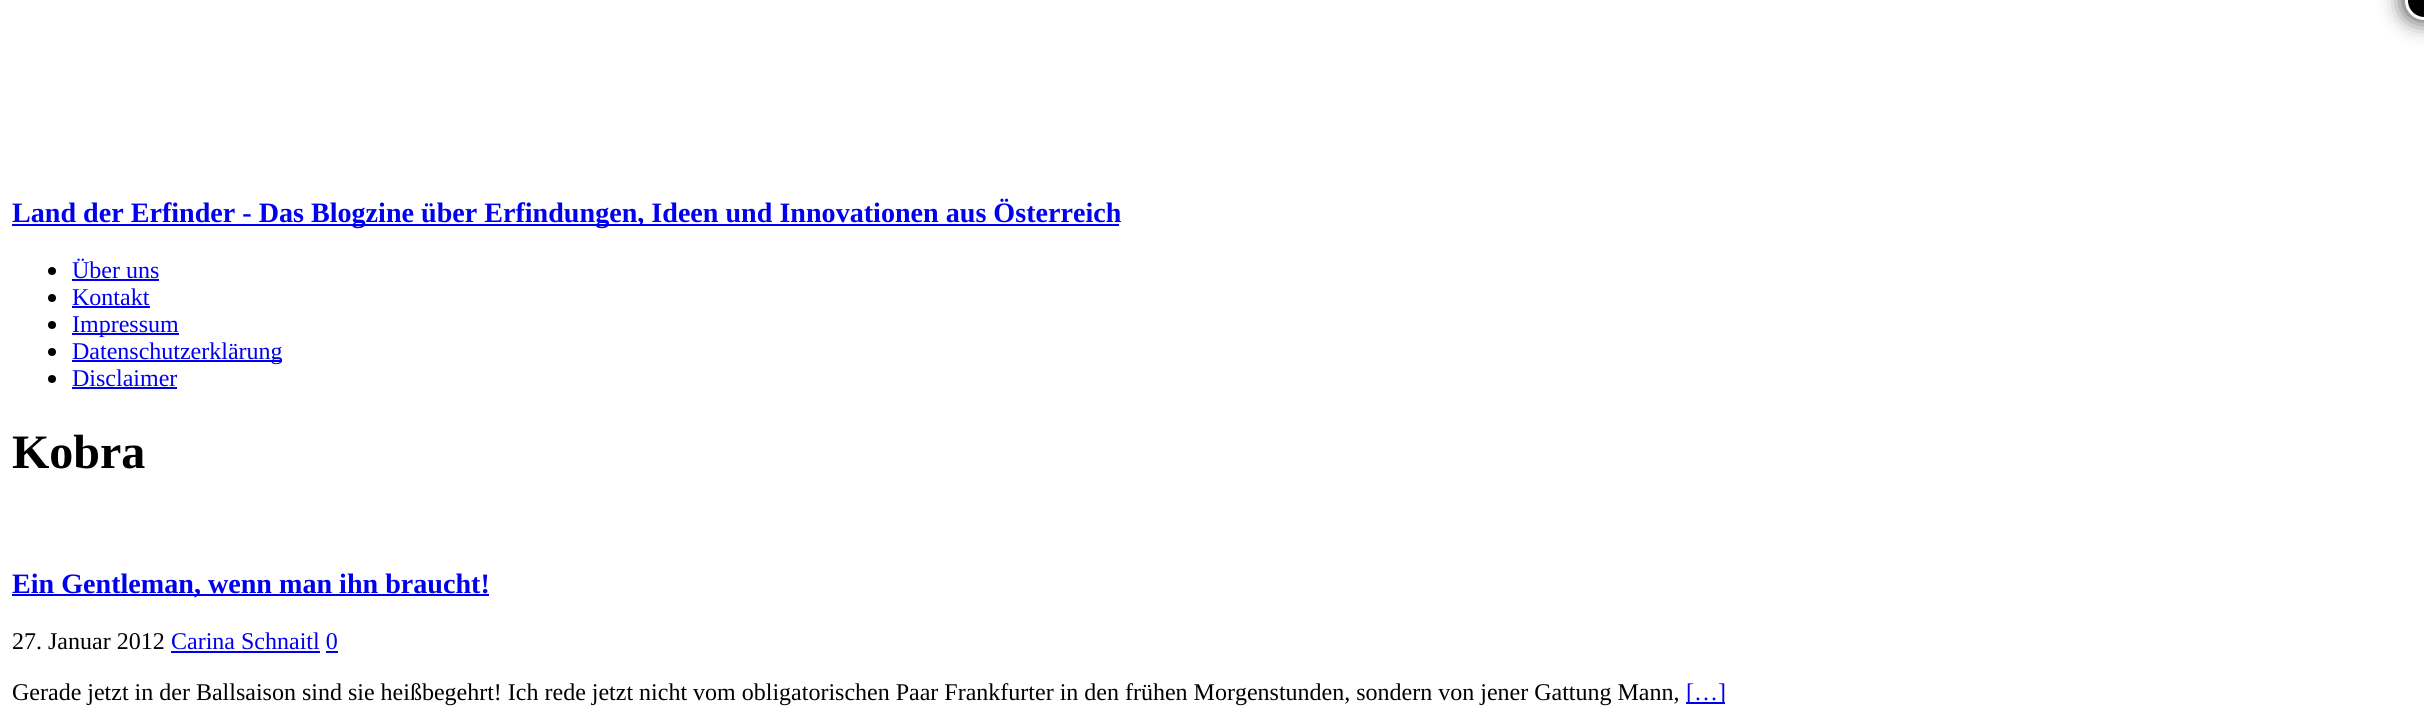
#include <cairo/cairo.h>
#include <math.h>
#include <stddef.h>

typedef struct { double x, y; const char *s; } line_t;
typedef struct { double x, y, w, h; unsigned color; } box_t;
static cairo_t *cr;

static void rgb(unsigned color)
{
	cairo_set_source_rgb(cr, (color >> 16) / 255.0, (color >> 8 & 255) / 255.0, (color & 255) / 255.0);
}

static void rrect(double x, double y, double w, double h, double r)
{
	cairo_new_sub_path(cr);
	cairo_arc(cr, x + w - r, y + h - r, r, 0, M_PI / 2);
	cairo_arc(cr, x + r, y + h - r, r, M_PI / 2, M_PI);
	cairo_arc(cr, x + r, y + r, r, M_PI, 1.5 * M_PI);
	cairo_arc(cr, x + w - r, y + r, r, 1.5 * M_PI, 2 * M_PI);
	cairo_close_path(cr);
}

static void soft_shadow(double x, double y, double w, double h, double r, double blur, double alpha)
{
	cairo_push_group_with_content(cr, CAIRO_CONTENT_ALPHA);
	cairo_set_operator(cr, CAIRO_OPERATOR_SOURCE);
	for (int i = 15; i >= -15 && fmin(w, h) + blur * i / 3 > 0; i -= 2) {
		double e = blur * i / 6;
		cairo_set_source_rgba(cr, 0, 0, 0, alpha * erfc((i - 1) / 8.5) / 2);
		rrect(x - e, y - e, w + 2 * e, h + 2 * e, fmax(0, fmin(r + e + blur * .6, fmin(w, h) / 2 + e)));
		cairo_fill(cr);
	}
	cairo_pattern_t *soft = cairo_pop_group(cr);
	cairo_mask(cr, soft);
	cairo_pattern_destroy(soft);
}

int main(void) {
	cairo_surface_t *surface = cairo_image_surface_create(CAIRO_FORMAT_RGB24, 2424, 722);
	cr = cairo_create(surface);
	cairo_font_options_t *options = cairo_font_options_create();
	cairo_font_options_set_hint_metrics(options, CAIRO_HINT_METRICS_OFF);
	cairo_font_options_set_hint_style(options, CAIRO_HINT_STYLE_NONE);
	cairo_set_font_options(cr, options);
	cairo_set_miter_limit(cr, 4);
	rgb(0xffffff);
	cairo_paint(cr);
	rgb(0x020202);
	soft_shadow(2403, -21, 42, 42, 21, 11, 0.75);
	rgb(0x000000);
	cairo_arc(cr, 2424.5, 0.5, 18, 0, 2 * M_PI);
	cairo_fill_preserve(cr);
	rgb(0xffffff);
	cairo_set_line_width(cr, 3);
	cairo_stroke(cr);
	rgb(0x0000ee);
	cairo_rectangle(cr, 12, 224, 1107, 2);
	cairo_fill(cr);
	rgb(0x000000);
	cairo_arc(cr, 52, 271, 4, 0, 2 * M_PI);
	cairo_fill(cr);
	rgb(0x0000ee);
	cairo_rectangle(cr, 72, 279, 87, 2);
	cairo_fill(cr);
	rgb(0x000000);
	cairo_arc(cr, 52, 298, 4, 0, 2 * M_PI);
	cairo_fill(cr);
	rgb(0x0000ee);
	cairo_rectangle(cr, 72, 306, 78, 2);
	cairo_fill(cr);
	rgb(0x000000);
	cairo_arc(cr, 52, 325, 4, 0, 2 * M_PI);
	cairo_fill(cr);
	rgb(0x0000ee);
	cairo_rectangle(cr, 72, 333, 107, 2);
	cairo_fill(cr);
	rgb(0x000000);
	cairo_arc(cr, 52, 352, 4, 0, 2 * M_PI);
	cairo_fill(cr);
	rgb(0x0000ee);
	cairo_rectangle(cr, 72, 360, 210, 2);
	cairo_fill(cr);
	rgb(0x000000);
	cairo_arc(cr, 52, 379, 4, 0, 2 * M_PI);
	cairo_fill(cr);
	{
		static const box_t items[] = {
			{72, 387, 105, 2, 0x0000ee},
			{12, 594, 477, 2, 0x0000ee},
			{171, 651, 149, 2, 0x0000ee},
			{326, 651, 12, 2, 0x0000ee},
			{1686, 702, 39, 2, 0x0000ee},
		};
		for (size_t i = 0; i < sizeof items / sizeof *items; i++) {
			rgb(items[i].color);
			cairo_rectangle(cr, items[i].x, items[i].y, items[i].w, items[i].h);
			cairo_fill(cr);
		}
	}
	cairo_select_font_face(cr, "Liberation Serif", CAIRO_FONT_SLANT_NORMAL, CAIRO_FONT_WEIGHT_BOLD);
	cairo_set_font_size(cr, 28.1);
	cairo_move_to(cr, 12, 222);
	cairo_show_text(cr, "Land der Erfinder - Das Blogzine über Erfindungen, Ideen und Innovationen aus Österreich");
	cairo_select_font_face(cr, "Liberation Serif", CAIRO_FONT_SLANT_NORMAL, CAIRO_FONT_WEIGHT_NORMAL);
	cairo_set_font_size(cr, 24);
	{
		static const line_t items[] = {
			{72, 278, "Über uns"},
			{72, 305, "Kontakt"},
			{72, 332, "Impressum"},
			{72, 359, "Datenschutzerklärung"},
			{72, 386, "Disclaimer"},
		};
		for (size_t i = 0; i < sizeof items / sizeof *items; i++) {
			cairo_move_to(cr, items[i].x, items[i].y);
			cairo_show_text(cr, items[i].s);
		}
	}
	cairo_select_font_face(cr, "Liberation Serif", CAIRO_FONT_SLANT_NORMAL, CAIRO_FONT_WEIGHT_BOLD);
	cairo_set_font_size(cr, 48);
	rgb(0x000000);
	cairo_move_to(cr, 12, 468);
	cairo_show_text(cr, "Kobra");
	cairo_set_font_size(cr, 28.1);
	rgb(0x0000ee);
	cairo_move_to(cr, 12, 593);
	cairo_show_text(cr, "Ein Gentleman, wenn man ihn braucht!");
	cairo_select_font_face(cr, "Liberation Serif", CAIRO_FONT_SLANT_NORMAL, CAIRO_FONT_WEIGHT_NORMAL);
	cairo_set_font_size(cr, 24);
	rgb(0x000000);
	cairo_move_to(cr, 12, 649);
	cairo_show_text(cr, "27. Januar 2012");
	rgb(0x0000ee);
	cairo_move_to(cr, 171, 649);
	cairo_show_text(cr, "Carina Schnaitl 0");
	rgb(0x000000);
	cairo_move_to(cr, 12, 700);
	cairo_show_text(cr, "Gerade jetzt in der Ballsaison sind sie heißbegehrt! Ich rede jetzt nicht vom obligatorischen Paar Frankfurter in den frühen Morgenstunden, sondern von jener Gattung Mann,");
	rgb(0x0000ee);
	cairo_move_to(cr, 1686, 700);
	cairo_show_text(cr, "[…]");
	cairo_surface_write_to_png(surface, "page.png");
	cairo_font_options_destroy(options);
	cairo_destroy(cr);
	cairo_surface_destroy(surface);
	return 0;
}
